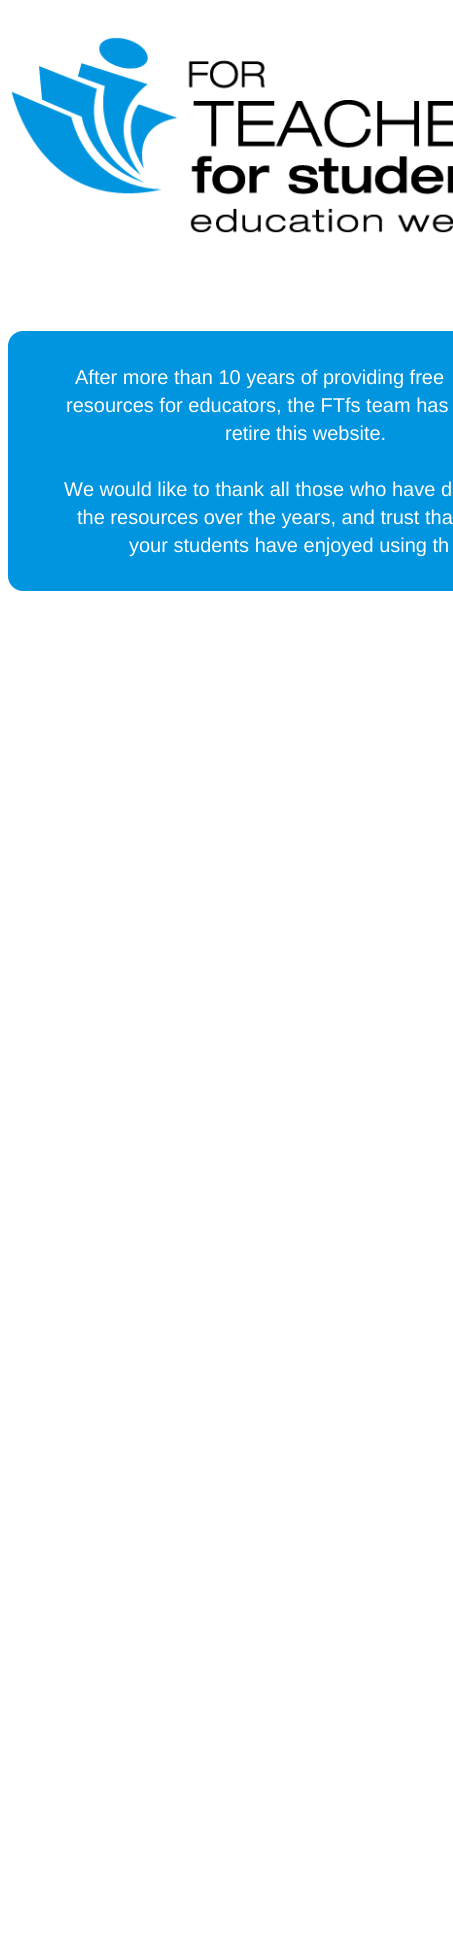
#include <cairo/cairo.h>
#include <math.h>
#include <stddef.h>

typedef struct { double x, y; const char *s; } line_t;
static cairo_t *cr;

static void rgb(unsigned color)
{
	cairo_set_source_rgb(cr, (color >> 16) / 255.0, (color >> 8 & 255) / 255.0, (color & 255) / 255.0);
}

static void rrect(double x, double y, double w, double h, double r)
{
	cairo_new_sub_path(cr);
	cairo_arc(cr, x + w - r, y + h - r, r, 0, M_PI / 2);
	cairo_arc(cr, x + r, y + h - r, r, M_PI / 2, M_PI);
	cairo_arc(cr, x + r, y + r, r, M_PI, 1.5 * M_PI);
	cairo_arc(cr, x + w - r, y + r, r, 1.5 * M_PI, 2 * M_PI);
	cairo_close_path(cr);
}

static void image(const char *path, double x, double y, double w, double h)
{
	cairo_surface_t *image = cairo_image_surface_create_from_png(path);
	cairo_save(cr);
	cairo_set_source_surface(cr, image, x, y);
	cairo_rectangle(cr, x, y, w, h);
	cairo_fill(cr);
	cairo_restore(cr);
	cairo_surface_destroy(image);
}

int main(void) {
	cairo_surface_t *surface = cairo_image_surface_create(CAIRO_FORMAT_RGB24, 453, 1939);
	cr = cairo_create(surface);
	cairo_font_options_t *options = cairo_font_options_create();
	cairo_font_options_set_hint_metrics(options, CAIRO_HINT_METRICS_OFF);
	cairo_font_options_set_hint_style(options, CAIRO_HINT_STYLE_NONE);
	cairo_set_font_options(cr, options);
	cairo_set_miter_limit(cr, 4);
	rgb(0xffffff);
	cairo_paint(cr);
	image("img/1.png", 11, 37, 442, 196);
	rgb(0x0195df);
	rrect(8, 331, 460, 260, 15);
	cairo_fill(cr);
	cairo_select_font_face(cr, "Liberation Sans", CAIRO_FONT_SLANT_NORMAL, CAIRO_FONT_WEIGHT_NORMAL);
	cairo_set_font_size(cr, 20);
	rgb(0xffffff);
	{
		static const line_t items[] = {
			{75, 384, "After more than 10 years of providing free"},
			{66, 412, "resources for educators, the FTfs team has"},
			{225, 440, "retire this website."},
			{64, 496, "We would like to thank all those who have d"},
			{77, 524, "the resources over the years, and trust tha"},
			{129, 552, "your students have enjoyed using th"},
		};
		for (size_t i = 0; i < sizeof items / sizeof *items; i++) {
			cairo_move_to(cr, items[i].x, items[i].y);
			cairo_show_text(cr, items[i].s);
		}
	}
	cairo_surface_write_to_png(surface, "page.png");
	cairo_font_options_destroy(options);
	cairo_destroy(cr);
	cairo_surface_destroy(surface);
	return 0;
}
